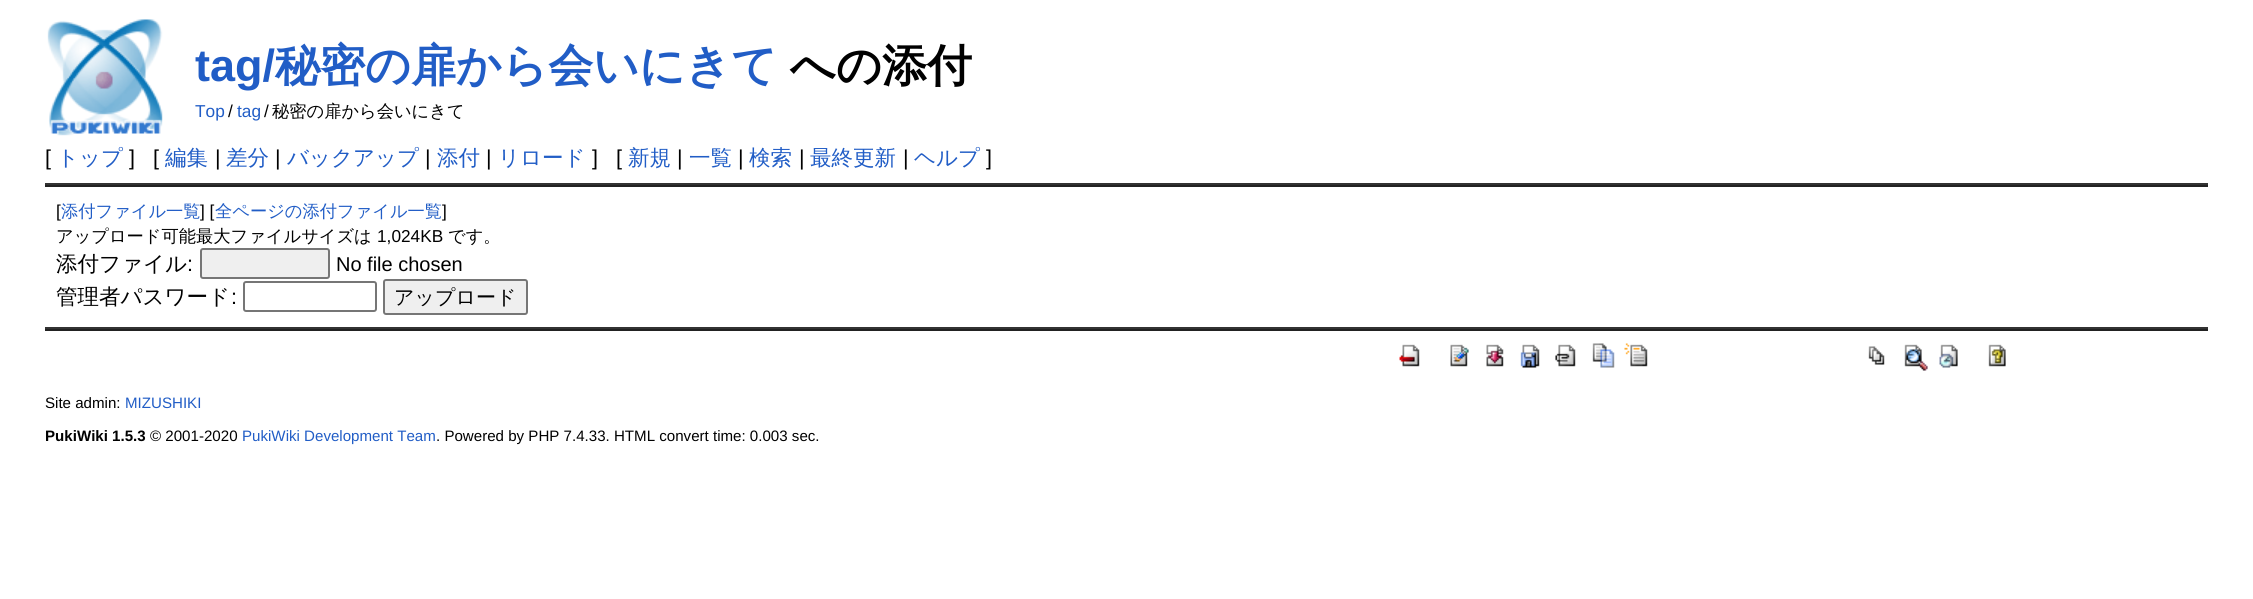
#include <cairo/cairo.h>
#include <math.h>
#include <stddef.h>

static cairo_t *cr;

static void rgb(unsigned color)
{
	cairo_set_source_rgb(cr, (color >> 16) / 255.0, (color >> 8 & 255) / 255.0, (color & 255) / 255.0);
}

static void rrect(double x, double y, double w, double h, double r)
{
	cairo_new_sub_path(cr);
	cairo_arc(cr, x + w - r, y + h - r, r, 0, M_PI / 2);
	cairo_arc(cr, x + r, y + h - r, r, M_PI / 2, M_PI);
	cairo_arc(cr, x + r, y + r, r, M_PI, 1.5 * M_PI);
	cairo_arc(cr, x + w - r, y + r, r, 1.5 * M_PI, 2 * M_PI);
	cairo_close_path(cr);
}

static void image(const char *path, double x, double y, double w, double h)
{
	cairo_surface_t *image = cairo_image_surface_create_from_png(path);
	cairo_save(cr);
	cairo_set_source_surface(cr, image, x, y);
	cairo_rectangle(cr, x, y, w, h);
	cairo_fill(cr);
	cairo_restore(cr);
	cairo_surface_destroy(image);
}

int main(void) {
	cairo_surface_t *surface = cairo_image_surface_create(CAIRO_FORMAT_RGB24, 2253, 599);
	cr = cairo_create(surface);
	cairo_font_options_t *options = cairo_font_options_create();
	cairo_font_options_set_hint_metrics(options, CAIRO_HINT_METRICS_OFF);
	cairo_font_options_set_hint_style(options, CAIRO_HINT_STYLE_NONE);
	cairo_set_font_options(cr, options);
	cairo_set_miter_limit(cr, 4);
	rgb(0xffffff);
	cairo_paint(cr);
	image("img/1.png", 47, 19, 116, 117);
	rgb(0x333333);
	cairo_rectangle(cr, 45, 183, 2163, 2);
	cairo_fill(cr);
	rgb(0x222222);
	cairo_rectangle(cr, 45, 185, 2163, 2);
	cairo_fill(cr);
	rgb(0xefefef);
	rrect(201, 249, 128, 29, 2);
	cairo_fill_preserve(cr);
	rgb(0x767676);
	cairo_stroke(cr);
	rrect(244, 282, 132, 29, 2);
	cairo_stroke(cr);
	rgb(0xefefef);
	rrect(384, 280, 143, 34, 2);
	cairo_fill_preserve(cr);
	rgb(0x767676);
	cairo_stroke(cr);
	rgb(0x333333);
	cairo_rectangle(cr, 45, 327, 2163, 2);
	cairo_fill(cr);
	rgb(0x222222);
	cairo_rectangle(cr, 45, 329, 2163, 2);
	cairo_fill(cr);
	image("img/2.png", 1399, 344, 21, 23);
	image("img/3.png", 1450, 344, 19, 23);
	image("img/4.png", 1486, 344, 18, 23);
	image("img/5.png", 1520, 344, 20, 24);
	image("img/6.png", 1555, 344, 21, 23);
	image("img/7.png", 1592, 343, 23, 25);
	image("img/8.png", 1624, 343, 24, 24);
	image("img/9.png", 1868, 346, 17, 19);
	image("img/10.png", 1904, 344, 24, 27);
	image("img/11.png", 1939, 344, 19, 24);
	image("img/12.png", 1988, 344, 18, 23);
	cairo_select_font_face(cr, "Liberation Sans", CAIRO_FONT_SLANT_NORMAL, CAIRO_FONT_WEIGHT_BOLD);
	cairo_set_font_size(cr, 45);
	rgb(0x215dc6);
	cairo_move_to(cr, 195, 81);
	cairo_show_text(cr, "tag/");
	cairo_select_font_face(cr, "WenQuanYi Zen Hei", CAIRO_FONT_SLANT_NORMAL, CAIRO_FONT_WEIGHT_BOLD);
	cairo_move_to(cr, 275, 81);
	cairo_show_text(cr, "秘密の扉から会いにきて");
	rgb(0x000000);
	cairo_move_to(cr, 790, 81);
	cairo_show_text(cr, "への添付");
	cairo_select_font_face(cr, "Liberation Sans", CAIRO_FONT_SLANT_NORMAL, CAIRO_FONT_WEIGHT_NORMAL);
	cairo_set_font_size(cr, 17.25);
	rgb(0x215dc6);
	cairo_move_to(cr, 195, 117);
	cairo_show_text(cr, "Top");
	rgb(0x000000);
	cairo_move_to(cr, 228, 117);
	cairo_show_text(cr, "/");
	rgb(0x215dc6);
	cairo_move_to(cr, 237, 117);
	cairo_show_text(cr, "tag");
	rgb(0x000000);
	cairo_move_to(cr, 264, 117);
	cairo_show_text(cr, "/");
	cairo_select_font_face(cr, "WenQuanYi Zen Hei Medium", CAIRO_FONT_SLANT_NORMAL, CAIRO_FONT_WEIGHT_NORMAL);
	cairo_move_to(cr, 272, 117);
	cairo_show_text(cr, "秘密の扉から会いにきて");
	cairo_select_font_face(cr, "Liberation Sans", CAIRO_FONT_SLANT_NORMAL, CAIRO_FONT_WEIGHT_NORMAL);
	cairo_set_font_size(cr, 21.5);
	cairo_move_to(cr, 45, 165);
	cairo_show_text(cr, "[");
	cairo_select_font_face(cr, "WenQuanYi Zen Hei Medium", CAIRO_FONT_SLANT_NORMAL, CAIRO_FONT_WEIGHT_NORMAL);
	rgb(0x215dc6);
	cairo_move_to(cr, 57, 165);
	cairo_show_text(cr, "トップ");
	cairo_select_font_face(cr, "Liberation Sans", CAIRO_FONT_SLANT_NORMAL, CAIRO_FONT_WEIGHT_NORMAL);
	rgb(0x000000);
	cairo_move_to(cr, 129, 165);
	cairo_show_text(cr, "]");
	cairo_move_to(cr, 153, 165);
	cairo_show_text(cr, "[");
	cairo_select_font_face(cr, "WenQuanYi Zen Hei Medium", CAIRO_FONT_SLANT_NORMAL, CAIRO_FONT_WEIGHT_NORMAL);
	rgb(0x215dc6);
	cairo_move_to(cr, 165, 165);
	cairo_show_text(cr, "編集");
	cairo_select_font_face(cr, "Liberation Sans", CAIRO_FONT_SLANT_NORMAL, CAIRO_FONT_WEIGHT_NORMAL);
	rgb(0x000000);
	cairo_move_to(cr, 215, 165);
	cairo_show_text(cr, "|");
	cairo_select_font_face(cr, "WenQuanYi Zen Hei Medium", CAIRO_FONT_SLANT_NORMAL, CAIRO_FONT_WEIGHT_NORMAL);
	rgb(0x215dc6);
	cairo_move_to(cr, 226, 165);
	cairo_show_text(cr, "差分");
	cairo_select_font_face(cr, "Liberation Sans", CAIRO_FONT_SLANT_NORMAL, CAIRO_FONT_WEIGHT_NORMAL);
	rgb(0x000000);
	cairo_move_to(cr, 275, 165);
	cairo_show_text(cr, "|");
	cairo_select_font_face(cr, "WenQuanYi Zen Hei Medium", CAIRO_FONT_SLANT_NORMAL, CAIRO_FONT_WEIGHT_NORMAL);
	rgb(0x215dc6);
	cairo_move_to(cr, 287, 165);
	cairo_show_text(cr, "バックアップ");
	cairo_select_font_face(cr, "Liberation Sans", CAIRO_FONT_SLANT_NORMAL, CAIRO_FONT_WEIGHT_NORMAL);
	rgb(0x000000);
	cairo_move_to(cr, 425, 165);
	cairo_show_text(cr, "|");
	cairo_select_font_face(cr, "WenQuanYi Zen Hei Medium", CAIRO_FONT_SLANT_NORMAL, CAIRO_FONT_WEIGHT_NORMAL);
	rgb(0x215dc6);
	cairo_move_to(cr, 437, 165);
	cairo_show_text(cr, "添付");
	cairo_select_font_face(cr, "Liberation Sans", CAIRO_FONT_SLANT_NORMAL, CAIRO_FONT_WEIGHT_NORMAL);
	rgb(0x000000);
	cairo_move_to(cr, 486, 165);
	cairo_show_text(cr, "|");
	cairo_select_font_face(cr, "WenQuanYi Zen Hei Medium", CAIRO_FONT_SLANT_NORMAL, CAIRO_FONT_WEIGHT_NORMAL);
	rgb(0x215dc6);
	cairo_move_to(cr, 498, 165);
	cairo_show_text(cr, "リロード");
	cairo_select_font_face(cr, "Liberation Sans", CAIRO_FONT_SLANT_NORMAL, CAIRO_FONT_WEIGHT_NORMAL);
	rgb(0x000000);
	cairo_move_to(cr, 592, 165);
	cairo_show_text(cr, "]");
	cairo_move_to(cr, 616, 165);
	cairo_show_text(cr, "[");
	cairo_select_font_face(cr, "WenQuanYi Zen Hei Medium", CAIRO_FONT_SLANT_NORMAL, CAIRO_FONT_WEIGHT_NORMAL);
	rgb(0x215dc6);
	cairo_move_to(cr, 628, 165);
	cairo_show_text(cr, "新規");
	cairo_select_font_face(cr, "Liberation Sans", CAIRO_FONT_SLANT_NORMAL, CAIRO_FONT_WEIGHT_NORMAL);
	rgb(0x000000);
	cairo_move_to(cr, 677, 165);
	cairo_show_text(cr, "|");
	cairo_select_font_face(cr, "WenQuanYi Zen Hei Medium", CAIRO_FONT_SLANT_NORMAL, CAIRO_FONT_WEIGHT_NORMAL);
	rgb(0x215dc6);
	cairo_move_to(cr, 689, 165);
	cairo_show_text(cr, "一覧");
	cairo_select_font_face(cr, "Liberation Sans", CAIRO_FONT_SLANT_NORMAL, CAIRO_FONT_WEIGHT_NORMAL);
	rgb(0x000000);
	cairo_move_to(cr, 738, 165);
	cairo_show_text(cr, "|");
	cairo_select_font_face(cr, "WenQuanYi Zen Hei Medium", CAIRO_FONT_SLANT_NORMAL, CAIRO_FONT_WEIGHT_NORMAL);
	rgb(0x215dc6);
	cairo_move_to(cr, 749, 165);
	cairo_show_text(cr, "検索");
	cairo_select_font_face(cr, "Liberation Sans", CAIRO_FONT_SLANT_NORMAL, CAIRO_FONT_WEIGHT_NORMAL);
	rgb(0x000000);
	cairo_move_to(cr, 799, 165);
	cairo_show_text(cr, "|");
	cairo_select_font_face(cr, "WenQuanYi Zen Hei Medium", CAIRO_FONT_SLANT_NORMAL, CAIRO_FONT_WEIGHT_NORMAL);
	rgb(0x215dc6);
	cairo_move_to(cr, 810, 165);
	cairo_show_text(cr, "最終更新");
	cairo_select_font_face(cr, "Liberation Sans", CAIRO_FONT_SLANT_NORMAL, CAIRO_FONT_WEIGHT_NORMAL);
	rgb(0x000000);
	cairo_move_to(cr, 903, 165);
	cairo_show_text(cr, "|");
	cairo_select_font_face(cr, "WenQuanYi Zen Hei Medium", CAIRO_FONT_SLANT_NORMAL, CAIRO_FONT_WEIGHT_NORMAL);
	rgb(0x215dc6);
	cairo_move_to(cr, 914, 165);
	cairo_show_text(cr, "ヘルプ");
	cairo_select_font_face(cr, "Liberation Sans", CAIRO_FONT_SLANT_NORMAL, CAIRO_FONT_WEIGHT_NORMAL);
	rgb(0x000000);
	cairo_move_to(cr, 986, 165);
	cairo_show_text(cr, "]");
	cairo_set_font_size(cr, 17.25);
	cairo_move_to(cr, 56, 217);
	cairo_show_text(cr, "[");
	cairo_select_font_face(cr, "WenQuanYi Zen Hei Medium", CAIRO_FONT_SLANT_NORMAL, CAIRO_FONT_WEIGHT_NORMAL);
	rgb(0x215dc6);
	cairo_move_to(cr, 61, 217);
	cairo_show_text(cr, "添付ファイル一覧");
	cairo_select_font_face(cr, "Liberation Sans", CAIRO_FONT_SLANT_NORMAL, CAIRO_FONT_WEIGHT_NORMAL);
	rgb(0x000000);
	cairo_move_to(cr, 200, 217);
	cairo_show_text(cr, "] [");
	cairo_select_font_face(cr, "WenQuanYi Zen Hei Medium", CAIRO_FONT_SLANT_NORMAL, CAIRO_FONT_WEIGHT_NORMAL);
	rgb(0x215dc6);
	cairo_move_to(cr, 215, 217);
	cairo_show_text(cr, "全ページの添付ファイル一覧");
	cairo_select_font_face(cr, "Liberation Sans", CAIRO_FONT_SLANT_NORMAL, CAIRO_FONT_WEIGHT_NORMAL);
	rgb(0x000000);
	cairo_move_to(cr, 442, 217);
	cairo_show_text(cr, "]");
	cairo_select_font_face(cr, "WenQuanYi Zen Hei Medium", CAIRO_FONT_SLANT_NORMAL, CAIRO_FONT_WEIGHT_NORMAL);
	cairo_move_to(cr, 56, 242);
	cairo_show_text(cr, "アップロード可能最大ファイルサイズは");
	cairo_select_font_face(cr, "Liberation Sans", CAIRO_FONT_SLANT_NORMAL, CAIRO_FONT_WEIGHT_NORMAL);
	cairo_move_to(cr, 377, 242);
	cairo_show_text(cr, "1,024KB");
	cairo_select_font_face(cr, "WenQuanYi Zen Hei Medium", CAIRO_FONT_SLANT_NORMAL, CAIRO_FONT_WEIGHT_NORMAL);
	cairo_move_to(cr, 448, 242);
	cairo_show_text(cr, "です。");
	cairo_set_font_size(cr, 21.5);
	cairo_move_to(cr, 56, 271);
	cairo_show_text(cr, "添付ファイル");
	cairo_select_font_face(cr, "Liberation Sans", CAIRO_FONT_SLANT_NORMAL, CAIRO_FONT_WEIGHT_NORMAL);
	cairo_move_to(cr, 187, 271);
	cairo_show_text(cr, ":");
	cairo_set_font_size(cr, 20);
	cairo_move_to(cr, 336, 271);
	cairo_show_text(cr, "No file chosen");
	cairo_select_font_face(cr, "WenQuanYi Zen Hei Medium", CAIRO_FONT_SLANT_NORMAL, CAIRO_FONT_WEIGHT_NORMAL);
	cairo_set_font_size(cr, 21.5);
	cairo_move_to(cr, 56, 304);
	cairo_show_text(cr, "管理者パスワード");
	cairo_select_font_face(cr, "Liberation Sans", CAIRO_FONT_SLANT_NORMAL, CAIRO_FONT_WEIGHT_NORMAL);
	cairo_move_to(cr, 231, 304);
	cairo_show_text(cr, ":");
	cairo_select_font_face(cr, "WenQuanYi Zen Hei Medium", CAIRO_FONT_SLANT_NORMAL, CAIRO_FONT_WEIGHT_NORMAL);
	cairo_set_font_size(cr, 20);
	cairo_move_to(cr, 394, 304);
	cairo_show_text(cr, "アップロード");
	cairo_select_font_face(cr, "Liberation Sans", CAIRO_FONT_SLANT_NORMAL, CAIRO_FONT_WEIGHT_NORMAL);
	cairo_set_font_size(cr, 15.1);
	cairo_move_to(cr, 45, 408);
	cairo_show_text(cr, "Site admin:");
	rgb(0x215dc6);
	cairo_move_to(cr, 125, 408);
	cairo_show_text(cr, "MIZUSHIKI");
	cairo_select_font_face(cr, "Liberation Sans", CAIRO_FONT_SLANT_NORMAL, CAIRO_FONT_WEIGHT_BOLD);
	rgb(0x000000);
	cairo_move_to(cr, 45, 441);
	cairo_show_text(cr, "PukiWiki 1.5.3");
	cairo_select_font_face(cr, "Liberation Sans", CAIRO_FONT_SLANT_NORMAL, CAIRO_FONT_WEIGHT_NORMAL);
	cairo_move_to(cr, 150, 441);
	cairo_show_text(cr, "© 2001-2020");
	rgb(0x215dc6);
	cairo_move_to(cr, 242, 441);
	cairo_show_text(cr, "PukiWiki Development Team");
	rgb(0x000000);
	cairo_move_to(cr, 436, 441);
	cairo_show_text(cr, ". Powered by PHP 7.4.33. HTML convert time: 0.003 sec.");
	cairo_surface_write_to_png(surface, "page.png");
	cairo_font_options_destroy(options);
	cairo_destroy(cr);
	cairo_surface_destroy(surface);
	return 0;
}
